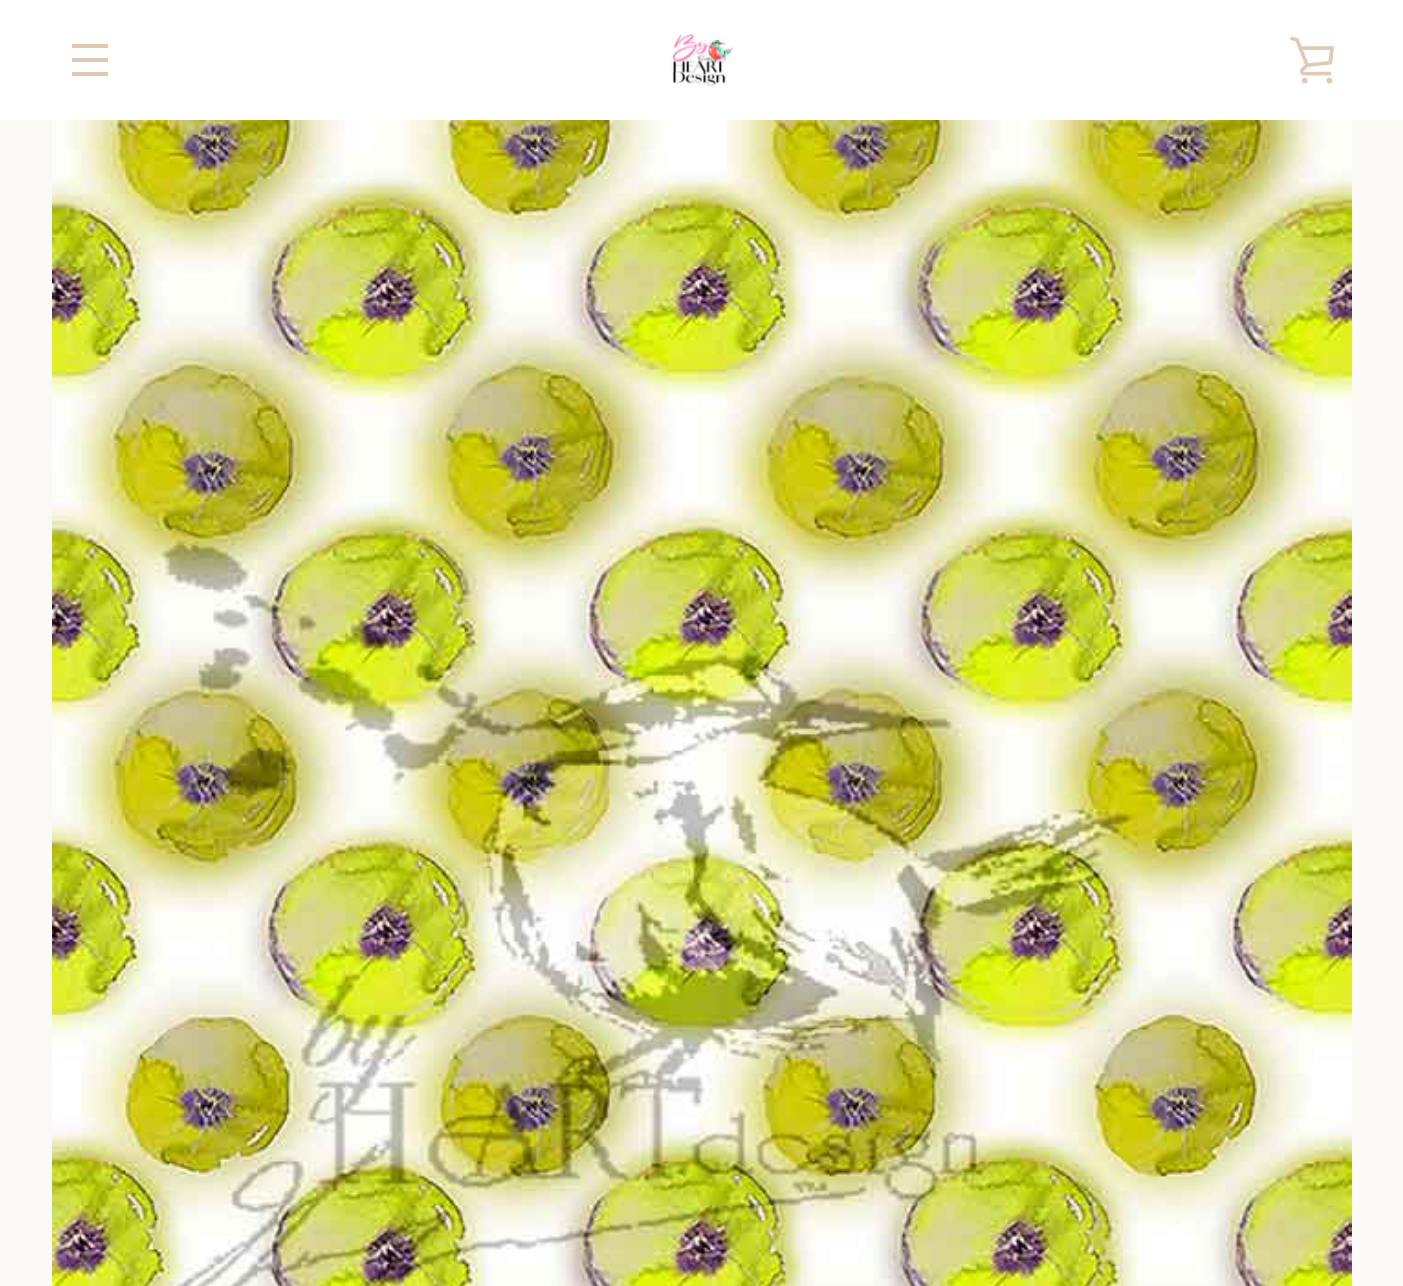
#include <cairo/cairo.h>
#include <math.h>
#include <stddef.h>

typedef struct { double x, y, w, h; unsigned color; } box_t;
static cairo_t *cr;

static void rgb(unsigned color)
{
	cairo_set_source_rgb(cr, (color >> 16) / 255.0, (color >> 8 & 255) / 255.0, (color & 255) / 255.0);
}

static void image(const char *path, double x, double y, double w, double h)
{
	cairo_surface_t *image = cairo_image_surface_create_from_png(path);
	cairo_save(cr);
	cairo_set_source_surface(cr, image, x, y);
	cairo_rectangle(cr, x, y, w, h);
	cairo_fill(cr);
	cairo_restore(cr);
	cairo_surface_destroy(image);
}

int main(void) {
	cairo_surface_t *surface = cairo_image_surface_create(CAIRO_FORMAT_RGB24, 1403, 1286);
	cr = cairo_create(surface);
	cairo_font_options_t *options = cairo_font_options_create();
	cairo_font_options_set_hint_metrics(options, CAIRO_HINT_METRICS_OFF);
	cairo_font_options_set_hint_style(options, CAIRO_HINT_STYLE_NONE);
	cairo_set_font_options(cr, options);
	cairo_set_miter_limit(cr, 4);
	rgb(0xfaf9f6);
	cairo_paint(cr);
	{
		static const box_t items[] = {
			{0, 0, 1403, 120, 0xffffff},
			{72, 44, 36, 4, 0xe1c9b4},
			{72, 58, 36, 4, 0xe1c9b4},
			{72, 72, 36, 4, 0xe1c9b4},
		};
		for (size_t i = 0; i < sizeof items / sizeof *items; i++) {
			rgb(items[i].color);
			cairo_rectangle(cr, items[i].x, items[i].y, items[i].w, items[i].h);
			cairo_fill(cr);
		}
	}
	image("img/1.png", 670, 30, 64, 57);
	image("img/2.png", 1290, 36, 44, 48);
	image("img/3.png", 52, 120, 1300, 1166);
	cairo_surface_write_to_png(surface, "page.png");
	cairo_font_options_destroy(options);
	cairo_destroy(cr);
	cairo_surface_destroy(surface);
	return 0;
}
